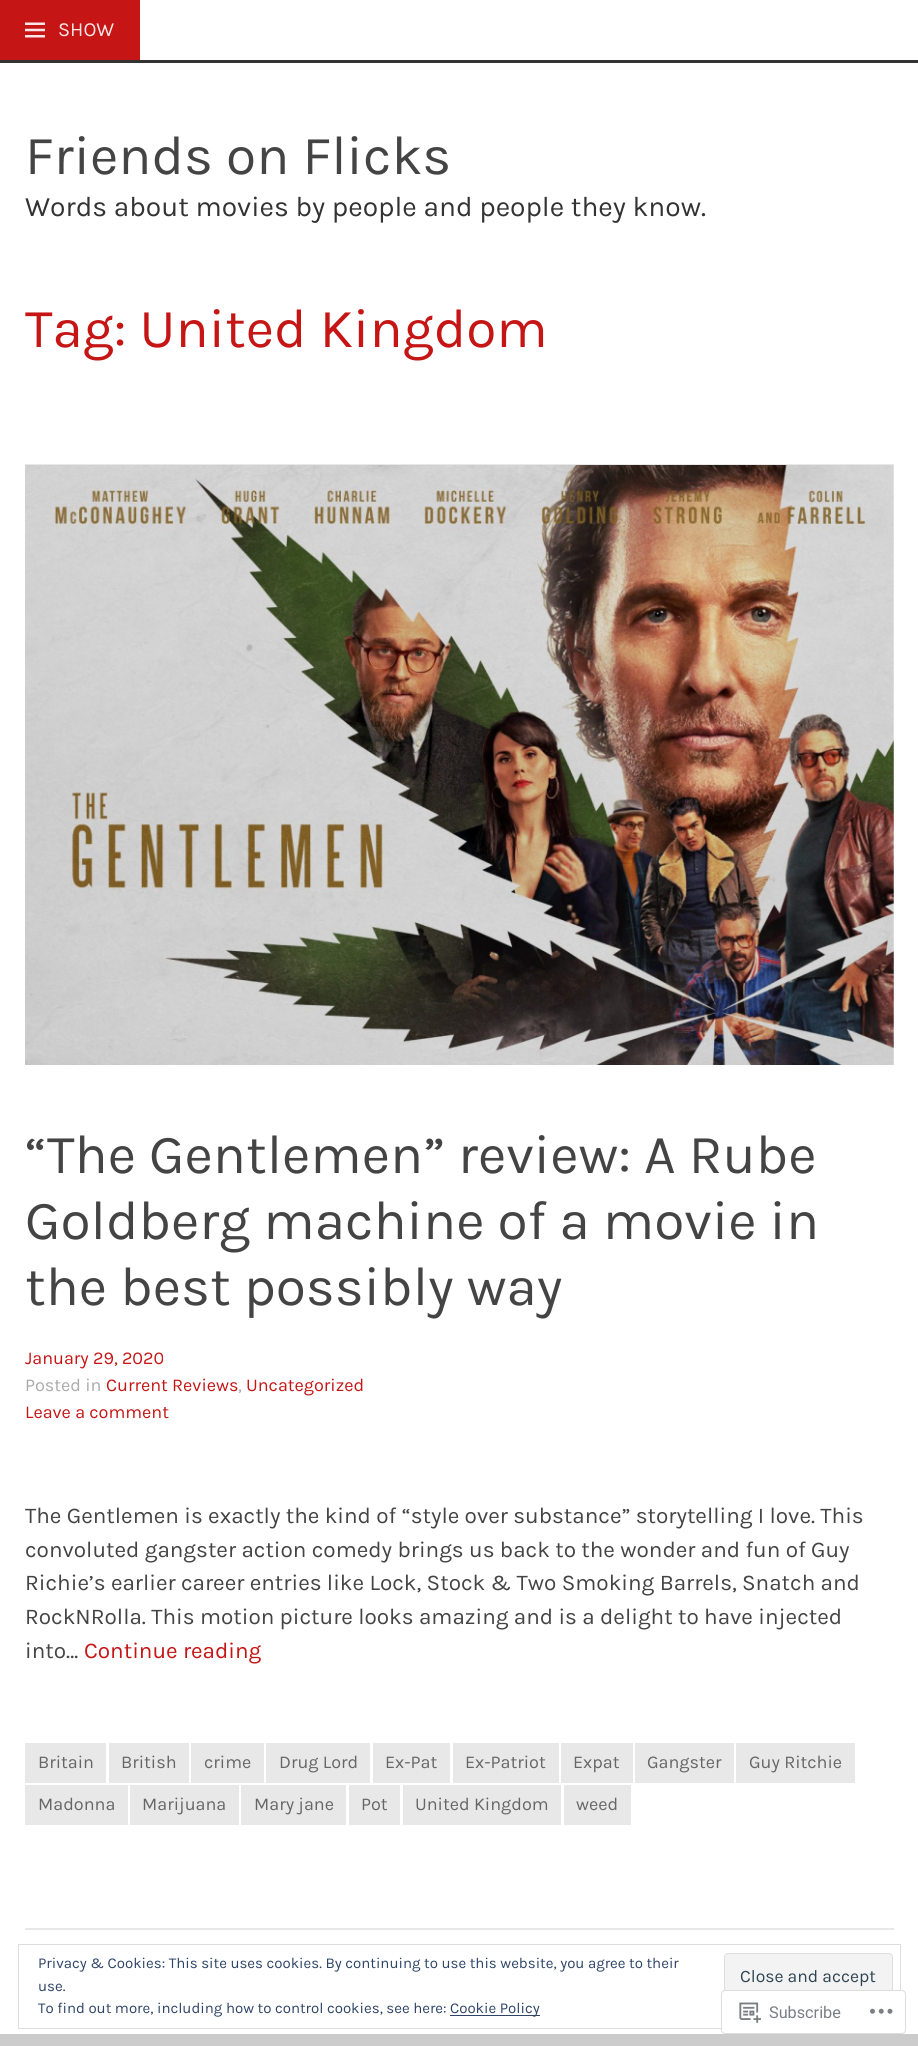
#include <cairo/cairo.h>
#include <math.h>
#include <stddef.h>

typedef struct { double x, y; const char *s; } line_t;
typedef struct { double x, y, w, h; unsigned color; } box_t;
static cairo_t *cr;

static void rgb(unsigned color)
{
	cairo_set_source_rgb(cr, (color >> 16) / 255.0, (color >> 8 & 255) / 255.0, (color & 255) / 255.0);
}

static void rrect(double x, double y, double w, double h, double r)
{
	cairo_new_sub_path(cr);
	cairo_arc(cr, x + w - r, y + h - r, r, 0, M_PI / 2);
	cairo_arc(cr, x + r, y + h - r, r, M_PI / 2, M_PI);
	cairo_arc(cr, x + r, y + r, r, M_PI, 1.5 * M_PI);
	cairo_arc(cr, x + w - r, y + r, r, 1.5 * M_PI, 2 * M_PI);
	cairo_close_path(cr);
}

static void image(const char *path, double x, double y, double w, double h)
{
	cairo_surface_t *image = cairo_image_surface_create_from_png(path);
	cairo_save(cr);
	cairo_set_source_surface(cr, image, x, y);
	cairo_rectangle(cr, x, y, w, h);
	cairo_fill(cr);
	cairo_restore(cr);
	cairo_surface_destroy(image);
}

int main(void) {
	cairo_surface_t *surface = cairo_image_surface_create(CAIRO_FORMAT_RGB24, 918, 2046);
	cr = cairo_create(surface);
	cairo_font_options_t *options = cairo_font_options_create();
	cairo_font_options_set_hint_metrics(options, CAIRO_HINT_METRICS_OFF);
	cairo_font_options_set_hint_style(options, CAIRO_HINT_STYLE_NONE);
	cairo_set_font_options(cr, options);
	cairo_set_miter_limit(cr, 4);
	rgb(0xcccccc);
	cairo_paint(cr);
	{
		static const box_t items[] = {
			{140, 0, 778, 60, 0xffffff},
			{0, 60, 918, 3, 0x333333},
			{0, 0, 140, 60, 0xc51515},
		};
		for (size_t i = 0; i < sizeof items / sizeof *items; i++) {
			rgb(items[i].color);
			cairo_rectangle(cr, items[i].x, items[i].y, items[i].w, items[i].h);
			cairo_fill(cr);
		}
	}
	image("img/1.png", 25, 22, 20, 16);
	{
		static const box_t items[] = {
			{0, 63, 918, 1971, 0xffffff},
			{25, 464, 869, 1, 0xe8e8e8},
			{25, 1928, 869, 2, 0xe8e8e8},
		};
		for (size_t i = 0; i < sizeof items / sizeof *items; i++) {
			rgb(items[i].color);
			cairo_rectangle(cr, items[i].x, items[i].y, items[i].w, items[i].h);
			cairo_fill(cr);
		}
	}
	image("img/2.png", 25, 465, 869, 600);
	{
		static const box_t items[] = {
			{25, 1743, 81, 40, 0xe8e8e8},
			{109, 1743, 80, 40, 0xe8e8e8},
			{191, 1743, 73, 40, 0xe8e8e8},
			{266, 1743, 104, 40, 0xe8e8e8},
			{373, 1743, 77, 40, 0xe8e8e8},
			{453, 1743, 106, 40, 0xe8e8e8},
			{561, 1743, 72, 40, 0xe8e8e8},
			{635, 1743, 99, 40, 0xe8e8e8},
			{736, 1743, 119, 40, 0xe8e8e8},
			{25, 1785, 103, 40, 0xe8e8e8},
			{130, 1785, 109, 40, 0xe8e8e8},
			{241, 1785, 105, 40, 0xe8e8e8},
			{349, 1785, 51, 40, 0xe8e8e8},
			{403, 1785, 158, 40, 0xe8e8e8},
			{564, 1785, 67, 40, 0xe8e8e8},
		};
		for (size_t i = 0; i < sizeof items / sizeof *items; i++) {
			rgb(items[i].color);
			cairo_rectangle(cr, items[i].x, items[i].y, items[i].w, items[i].h);
			cairo_fill(cr);
		}
	}
	cairo_rectangle(cr, 18.5, 1944.5, 882, 84);
	rgb(0xdedede);
	cairo_set_line_width(cr, 1);
	cairo_stroke(cr);
	rgb(0xf3f3f3);
	rrect(724.5, 1953.5, 168, 47, 3.5);
	cairo_fill_preserve(cr);
	rgb(0xdedede);
	cairo_stroke(cr);
	rgb(0x2e4467);
	cairo_rectangle(cr, 450, 2015, 90, 1);
	cairo_fill(cr);
	cairo_set_source_rgba(cr, 1, 1, 1, 0.98);
	rrect(721.5, 1990.5, 184, 43, 3.5);
	cairo_fill_preserve(cr);
	rgb(0xdddddf);
	cairo_stroke(cr);
	image("img/3.png", 739, 2002, 22, 21);
	image("img/4.png", 870, 2008, 23, 6);
	cairo_select_font_face(cr, "Karla", CAIRO_FONT_SLANT_NORMAL, CAIRO_FONT_WEIGHT_NORMAL);
	cairo_set_font_size(cr, 20);
	rgb(0xf9e6e6);
	cairo_move_to(cr, 58, 36);
	cairo_show_text(cr, "SHOW");
	cairo_set_font_size(cr, 55);
	rgb(0x444444);
	cairo_move_to(cr, 25, 174);
	cairo_show_text(cr, "Friends on Flicks");
	cairo_set_font_size(cr, 28.1);
	rgb(0x333333);
	cairo_move_to(cr, 25, 216);
	cairo_show_text(cr, "Words about movies by people and people they know.");
	cairo_set_font_size(cr, 55);
	rgb(0xc51515);
	cairo_move_to(cr, 25, 347);
	cairo_show_text(cr, "Tag: United Kingdom");
	rgb(0x444444);
	{
		static const line_t items[] = {
			{25, 1173, "“The Gentlemen” review: A Rube"},
			{25, 1239, "Goldberg machine of a movie in"},
			{25, 1305, "the best possibly way"},
		};
		for (size_t i = 0; i < sizeof items / sizeof *items; i++) {
			cairo_move_to(cr, items[i].x, items[i].y);
			cairo_show_text(cr, items[i].s);
		}
	}
	cairo_set_font_size(cr, 18);
	rgb(0xc51515);
	cairo_move_to(cr, 25, 1364);
	cairo_show_text(cr, "January 29, 2020");
	rgb(0xaaaaaa);
	cairo_move_to(cr, 25, 1391);
	cairo_show_text(cr, "Posted in");
	rgb(0xc51515);
	cairo_move_to(cr, 106, 1391);
	cairo_show_text(cr, "Current Reviews");
	rgb(0xaaaaaa);
	cairo_move_to(cr, 238, 1391);
	cairo_show_text(cr, ",");
	rgb(0xc51515);
	cairo_move_to(cr, 246, 1391);
	cairo_show_text(cr, "Uncategorized");
	cairo_move_to(cr, 25, 1418);
	cairo_show_text(cr, "Leave a comment");
	cairo_set_font_size(cr, 22.5);
	rgb(0x444444);
	{
		static const line_t items[] = {
			{25, 1523, "The Gentlemen is exactly the kind of “style over substance” storytelling I love. This"},
			{25, 1557, "convoluted gangster action comedy brings us back to the wonder and fun of Guy"},
			{25, 1590, "Richie’s earlier career entries like Lock, Stock & Two Smoking Barrels, Snatch and"},
			{25, 1624, "RockNRolla. This motion picture looks amazing and is a delight to have injected"},
			{25, 1658, "into…"},
		};
		for (size_t i = 0; i < sizeof items / sizeof *items; i++) {
			cairo_move_to(cr, items[i].x, items[i].y);
			cairo_show_text(cr, items[i].s);
		}
	}
	rgb(0xc51515);
	cairo_move_to(cr, 84, 1658);
	cairo_show_text(cr, "Continue reading");
	cairo_set_font_size(cr, 18);
	rgb(0x666666);
	{
		static const line_t items[] = {
			{38, 1768, "Britain"},
			{121, 1768, "British"},
			{204, 1768, "crime"},
			{279, 1768, "Drug Lord"},
			{385, 1768, "Ex-Pat"},
			{465, 1768, "Ex-Patriot"},
			{573, 1768, "Expat"},
			{647, 1768, "Gangster"},
			{749, 1768, "Guy Ritchie"},
			{38, 1810, "Madonna"},
			{142, 1810, "Marijuana"},
			{254, 1810, "Mary jane"},
			{361, 1810, "Pot"},
			{415, 1810, "United Kingdom"},
			{576, 1810, "weed"},
		};
		for (size_t i = 0; i < sizeof items / sizeof *items; i++) {
			cairo_move_to(cr, items[i].x, items[i].y);
			cairo_show_text(cr, items[i].s);
		}
	}
	cairo_set_font_size(cr, 15);
	rgb(0x2e4467);
	cairo_move_to(cr, 38, 1968);
	cairo_show_text(cr, "Privacy & Cookies: This site uses cookies. By continuing to use this website, you agree to their");
	cairo_move_to(cr, 38, 1991);
	cairo_show_text(cr, "use.");
	cairo_set_font_size(cr, 17.5);
	rgb(0x2e4453);
	cairo_move_to(cr, 740, 1982);
	cairo_show_text(cr, "Close and accept");
	cairo_set_font_size(cr, 15);
	rgb(0x2e4467);
	cairo_move_to(cr, 38, 2013);
	cairo_show_text(cr, "To find out more, including how to control cookies, see here:");
	cairo_move_to(cr, 450, 2013);
	cairo_show_text(cr, "Cookie Policy");
	cairo_select_font_face(cr, "Roboto", CAIRO_FONT_SLANT_NORMAL, CAIRO_FONT_WEIGHT_NORMAL);
	cairo_set_font_size(cr, 16.25);
	rgb(0x7b7f85);
	cairo_move_to(cr, 769, 2018);
	cairo_show_text(cr, "Subscribe");
	cairo_surface_write_to_png(surface, "page.png");
	cairo_font_options_destroy(options);
	cairo_destroy(cr);
	cairo_surface_destroy(surface);
	return 0;
}
